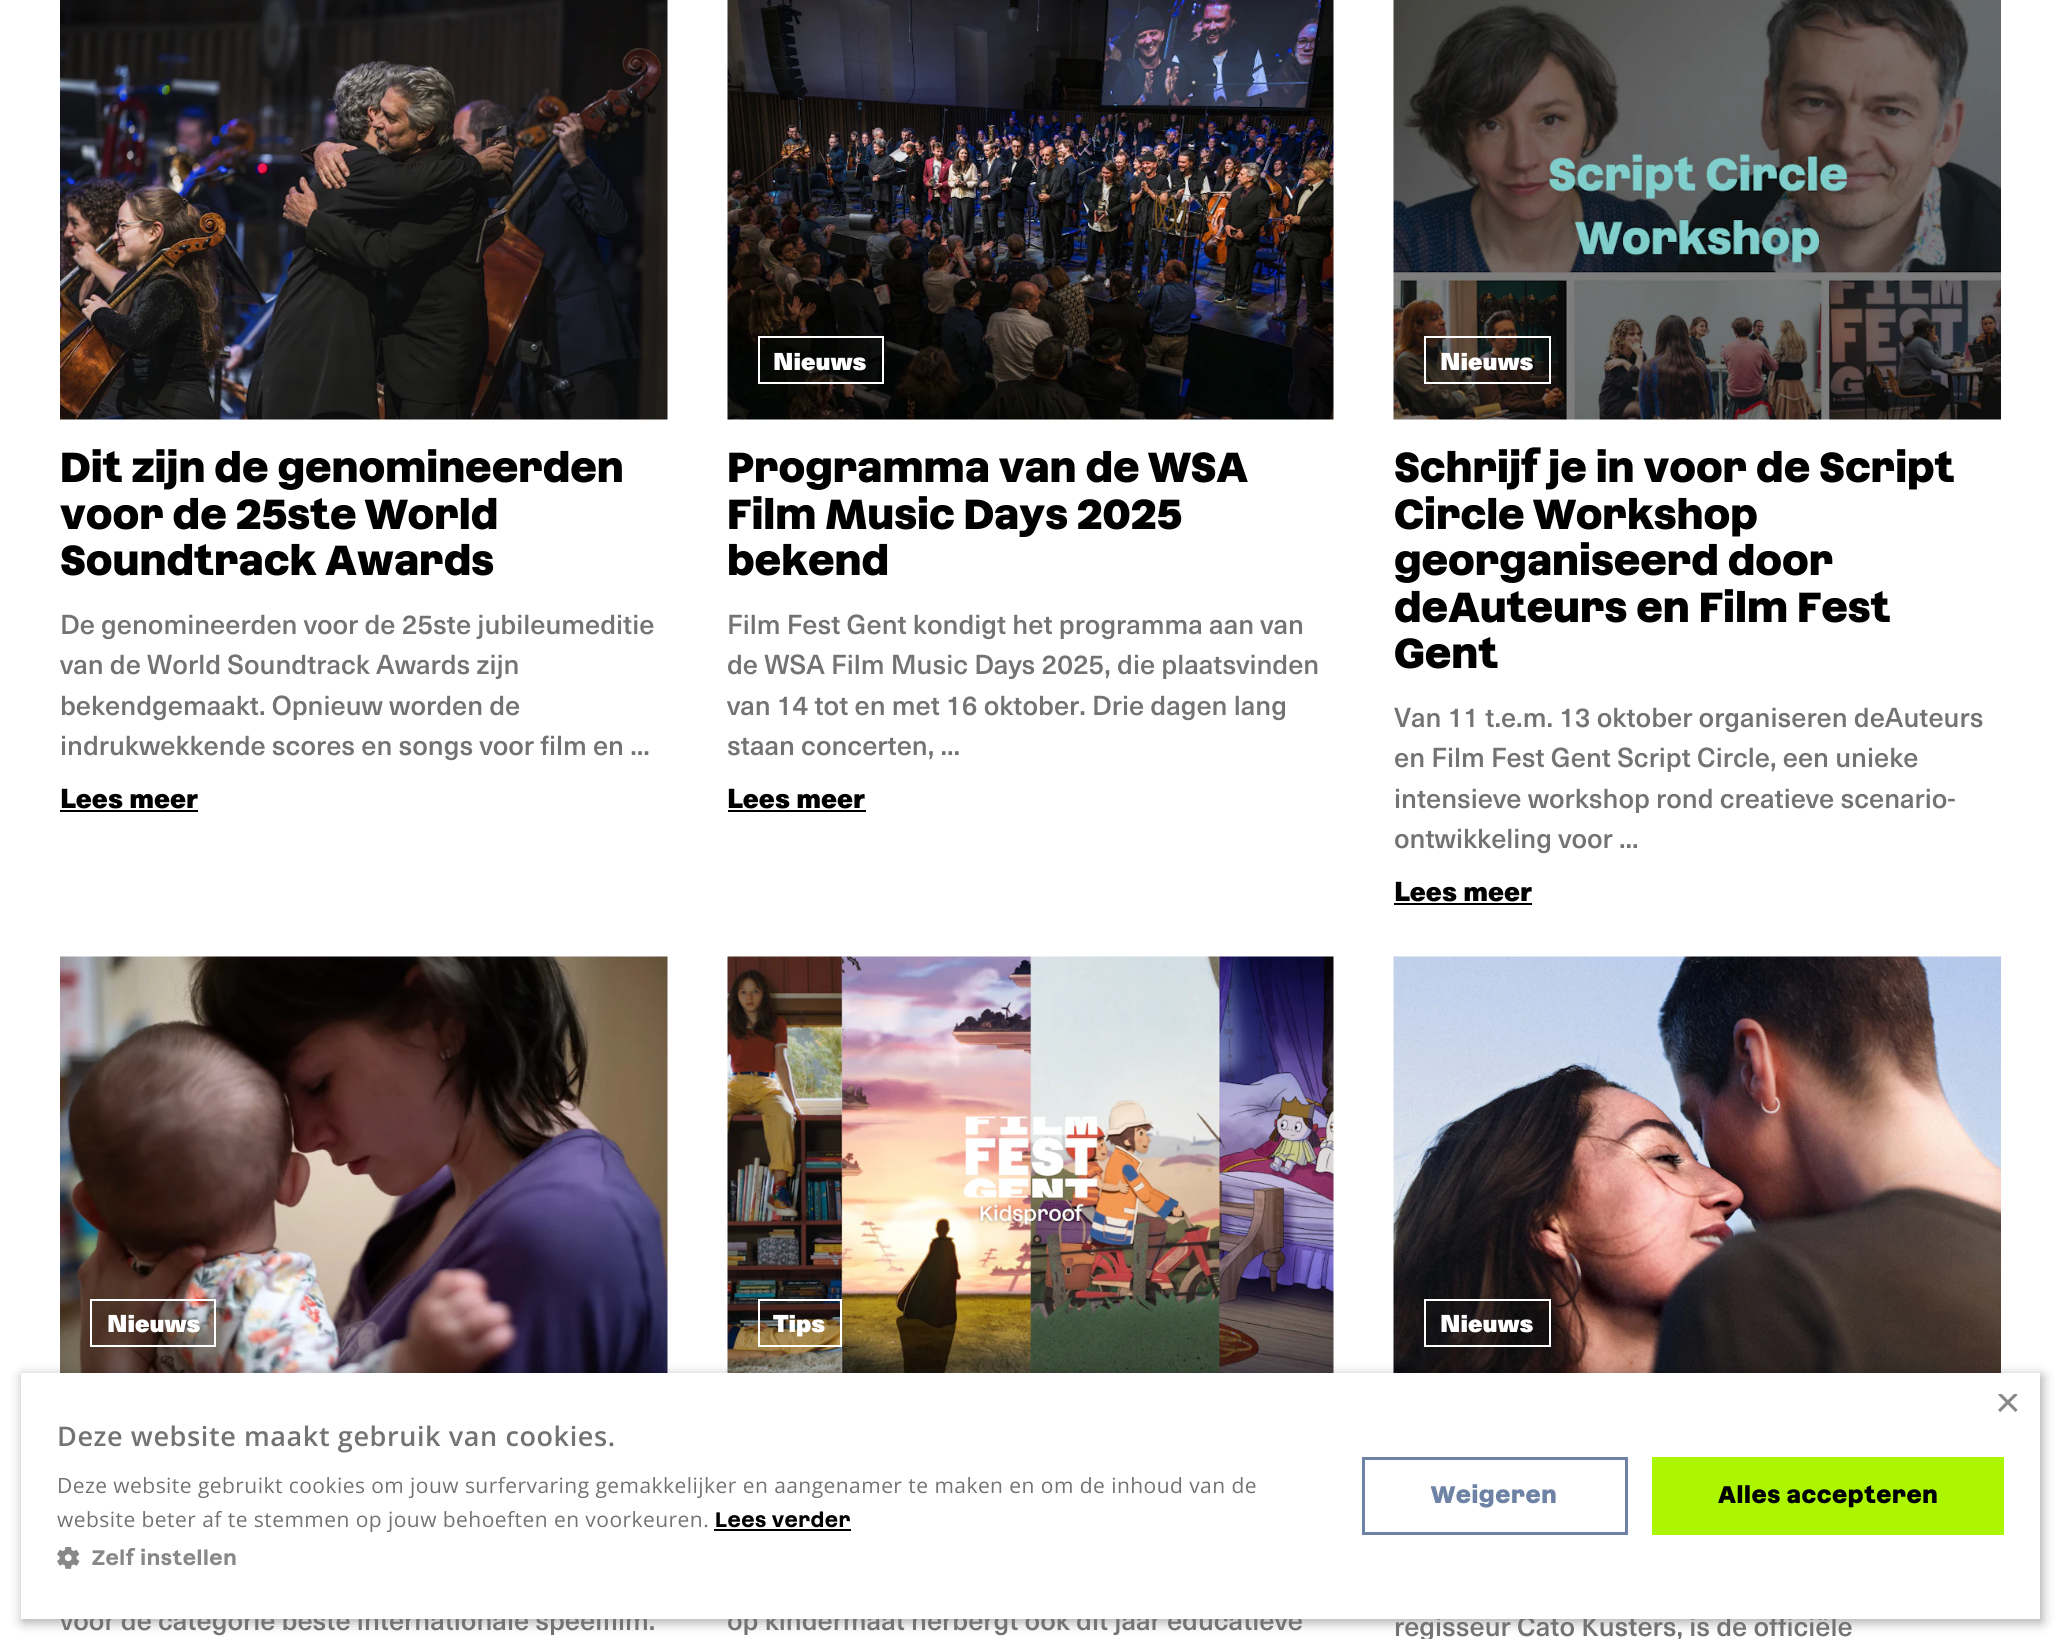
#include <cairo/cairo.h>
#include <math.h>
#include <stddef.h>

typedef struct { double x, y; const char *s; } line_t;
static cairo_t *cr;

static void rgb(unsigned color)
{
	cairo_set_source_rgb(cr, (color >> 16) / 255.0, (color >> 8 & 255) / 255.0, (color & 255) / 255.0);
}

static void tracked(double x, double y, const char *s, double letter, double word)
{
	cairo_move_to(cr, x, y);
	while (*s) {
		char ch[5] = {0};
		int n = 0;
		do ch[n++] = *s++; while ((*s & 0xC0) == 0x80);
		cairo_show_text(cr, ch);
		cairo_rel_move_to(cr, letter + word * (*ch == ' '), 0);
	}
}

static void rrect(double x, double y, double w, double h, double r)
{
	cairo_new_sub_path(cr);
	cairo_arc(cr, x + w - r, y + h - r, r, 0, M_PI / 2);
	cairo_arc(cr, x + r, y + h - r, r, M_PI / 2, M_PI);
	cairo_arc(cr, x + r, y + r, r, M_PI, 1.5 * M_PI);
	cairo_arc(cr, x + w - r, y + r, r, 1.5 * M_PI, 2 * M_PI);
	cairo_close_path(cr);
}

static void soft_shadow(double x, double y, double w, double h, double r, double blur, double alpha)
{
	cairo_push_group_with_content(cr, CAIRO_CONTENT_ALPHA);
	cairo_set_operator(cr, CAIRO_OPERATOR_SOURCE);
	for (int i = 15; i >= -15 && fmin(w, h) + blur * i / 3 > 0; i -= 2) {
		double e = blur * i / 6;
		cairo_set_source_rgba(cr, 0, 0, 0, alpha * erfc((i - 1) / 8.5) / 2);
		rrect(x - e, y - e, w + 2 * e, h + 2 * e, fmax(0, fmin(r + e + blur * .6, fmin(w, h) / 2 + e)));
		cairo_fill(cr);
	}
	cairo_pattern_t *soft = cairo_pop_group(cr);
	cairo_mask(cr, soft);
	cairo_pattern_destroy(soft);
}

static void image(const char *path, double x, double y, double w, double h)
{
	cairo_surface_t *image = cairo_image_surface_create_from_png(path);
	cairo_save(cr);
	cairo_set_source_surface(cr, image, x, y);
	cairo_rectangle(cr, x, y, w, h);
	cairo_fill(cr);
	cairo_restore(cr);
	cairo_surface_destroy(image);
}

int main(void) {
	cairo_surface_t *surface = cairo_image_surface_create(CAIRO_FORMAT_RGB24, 2060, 1639);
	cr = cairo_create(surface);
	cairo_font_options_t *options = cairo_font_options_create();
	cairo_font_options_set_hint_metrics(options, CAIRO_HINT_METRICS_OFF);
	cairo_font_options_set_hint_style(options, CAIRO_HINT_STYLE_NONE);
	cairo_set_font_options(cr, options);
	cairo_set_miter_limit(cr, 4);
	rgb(0xffffff);
	cairo_paint(cr);
	image("img/1.png", 60, 0, 608, 420);
	rgb(0x000000);
	cairo_rectangle(cr, 60, 810, 138, 2);
	cairo_fill(cr);
	image("img/2.png", 727, 0, 607, 420);
	cairo_rectangle(cr, 759, 337, 124, 46);
	rgb(0xffffff);
	cairo_stroke(cr);
	rgb(0x000000);
	cairo_rectangle(cr, 728, 810, 138, 2);
	cairo_fill(cr);
	image("img/3.png", 1393, 0, 608, 420);
	cairo_rectangle(cr, 1425, 337, 125, 46);
	rgb(0xffffff);
	cairo_stroke(cr);
	rgb(0x000000);
	cairo_rectangle(cr, 1394, 903, 138, 2);
	cairo_fill(cr);
	image("img/4.png", 60, 956, 608, 417);
	cairo_rectangle(cr, 91, 1300, 124, 46);
	rgb(0xffffff);
	cairo_stroke(cr);
	image("img/5.png", 727, 956, 607, 417);
	cairo_rectangle(cr, 759, 1300, 82, 46);
	cairo_stroke(cr);
	image("img/6.png", 1393, 956, 608, 417);
	cairo_rectangle(cr, 1425, 1300, 125, 46);
	cairo_stroke(cr);
	rgb(0x000000);
	soft_shadow(23, 1376, 2019, 246, 0, 6, 0.35);
	cairo_select_font_face(cr, "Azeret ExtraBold", CAIRO_FONT_SLANT_NORMAL, CAIRO_FONT_WEIGHT_NORMAL);
	cairo_set_font_size(cr, 42);
	rgb(0x000000);
	{
		static const line_t items[] = {
			{60, 482, "Dit zijn de genomineerden"},
			{60, 529, "voor de 25ste World"},
			{60, 575, "Soundtrack Awards"},
		};
		for (size_t i = 0; i < sizeof items / sizeof *items; i++) {
			cairo_move_to(cr, items[i].x, items[i].y);
			cairo_show_text(cr, items[i].s);
		}
	}
	cairo_select_font_face(cr, "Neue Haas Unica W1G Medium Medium", CAIRO_FONT_SLANT_NORMAL, CAIRO_FONT_WEIGHT_NORMAL);
	cairo_set_font_size(cr, 27);
	rgb(0x737373);
	{
		static const line_t items[] = {
			{60, 634, "De genomineerden voor de 25ste jubileumeditie"},
			{60, 674, "van de World Soundtrack Awards zijn"},
			{60, 715, "bekendgemaakt. Opnieuw worden de"},
			{60, 755, "indrukwekkende scores en songs voor film en ..."},
		};
		for (size_t i = 0; i < sizeof items / sizeof *items; i++) {
			cairo_move_to(cr, items[i].x, items[i].y);
			cairo_show_text(cr, items[i].s);
		}
	}
	cairo_select_font_face(cr, "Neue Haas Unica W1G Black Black", CAIRO_FONT_SLANT_NORMAL, CAIRO_FONT_WEIGHT_NORMAL);
	rgb(0x000000);
	cairo_move_to(cr, 60, 808);
	cairo_show_text(cr, "Lees meer");
	cairo_select_font_face(cr, "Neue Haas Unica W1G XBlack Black", CAIRO_FONT_SLANT_NORMAL, CAIRO_FONT_WEIGHT_NORMAL);
	cairo_set_font_size(cr, 24);
	rgb(0xffffff);
	cairo_move_to(cr, 773, 370);
	cairo_show_text(cr, "Nieuws");
	cairo_select_font_face(cr, "Azeret ExtraBold", CAIRO_FONT_SLANT_NORMAL, CAIRO_FONT_WEIGHT_NORMAL);
	cairo_set_font_size(cr, 42);
	rgb(0x000000);
	{
		static const line_t items[] = {
			{727, 482, "Programma van de WSA"},
			{727, 529, "Film Music Days 2025"},
			{727, 575, "bekend"},
		};
		for (size_t i = 0; i < sizeof items / sizeof *items; i++) {
			cairo_move_to(cr, items[i].x, items[i].y);
			cairo_show_text(cr, items[i].s);
		}
	}
	cairo_select_font_face(cr, "Neue Haas Unica W1G Medium Medium", CAIRO_FONT_SLANT_NORMAL, CAIRO_FONT_WEIGHT_NORMAL);
	cairo_set_font_size(cr, 27);
	rgb(0x737373);
	{
		static const line_t items[] = {
			{727, 634, "Film Fest Gent kondigt het programma aan van"},
			{727, 674, "de WSA Film Music Days 2025, die plaatsvinden"},
			{727, 715, "van 14 tot en met 16 oktober. Drie dagen lang"},
			{727, 755, "staan concerten, ..."},
		};
		for (size_t i = 0; i < sizeof items / sizeof *items; i++) {
			cairo_move_to(cr, items[i].x, items[i].y);
			cairo_show_text(cr, items[i].s);
		}
	}
	cairo_select_font_face(cr, "Neue Haas Unica W1G Black Black", CAIRO_FONT_SLANT_NORMAL, CAIRO_FONT_WEIGHT_NORMAL);
	rgb(0x000000);
	cairo_move_to(cr, 727, 808);
	cairo_show_text(cr, "Lees meer");
	cairo_select_font_face(cr, "Neue Haas Unica W1G XBlack Black", CAIRO_FONT_SLANT_NORMAL, CAIRO_FONT_WEIGHT_NORMAL);
	cairo_set_font_size(cr, 24);
	rgb(0xffffff);
	cairo_move_to(cr, 1440, 370);
	cairo_show_text(cr, "Nieuws");
	cairo_select_font_face(cr, "Azeret ExtraBold", CAIRO_FONT_SLANT_NORMAL, CAIRO_FONT_WEIGHT_NORMAL);
	cairo_set_font_size(cr, 42);
	rgb(0x000000);
	{
		static const line_t items[] = {
			{1394, 482, "Schrijf je in voor de Script"},
			{1394, 529, "Circle Workshop"},
			{1394, 575, "georganiseerd door"},
			{1394, 622, "deAuteurs en Film Fest"},
			{1394, 668, "Gent"},
		};
		for (size_t i = 0; i < sizeof items / sizeof *items; i++) {
			cairo_move_to(cr, items[i].x, items[i].y);
			cairo_show_text(cr, items[i].s);
		}
	}
	cairo_select_font_face(cr, "Neue Haas Unica W1G Medium Medium", CAIRO_FONT_SLANT_NORMAL, CAIRO_FONT_WEIGHT_NORMAL);
	cairo_set_font_size(cr, 27);
	rgb(0x737373);
	{
		static const line_t items[] = {
			{1394, 727, "Van 11 t.e.m. 13 oktober organiseren deAuteurs"},
			{1394, 767, "en Film Fest Gent Script Circle, een unieke"},
			{1394, 808, "intensieve workshop rond creatieve scenario-"},
			{1394, 848, "ontwikkeling voor ..."},
		};
		for (size_t i = 0; i < sizeof items / sizeof *items; i++) {
			cairo_move_to(cr, items[i].x, items[i].y);
			cairo_show_text(cr, items[i].s);
		}
	}
	cairo_select_font_face(cr, "Neue Haas Unica W1G Black Black", CAIRO_FONT_SLANT_NORMAL, CAIRO_FONT_WEIGHT_NORMAL);
	rgb(0x000000);
	cairo_move_to(cr, 1394, 901);
	cairo_show_text(cr, "Lees meer");
	cairo_select_font_face(cr, "Neue Haas Unica W1G XBlack Black", CAIRO_FONT_SLANT_NORMAL, CAIRO_FONT_WEIGHT_NORMAL);
	cairo_set_font_size(cr, 24);
	rgb(0xffffff);
	cairo_move_to(cr, 107, 1332);
	cairo_show_text(cr, "Nieuws");
	cairo_select_font_face(cr, "Neue Haas Unica W1G Medium Medium", CAIRO_FONT_SLANT_NORMAL, CAIRO_FONT_WEIGHT_NORMAL);
	cairo_set_font_size(cr, 27);
	rgb(0x737373);
	cairo_move_to(cr, 60, 1630);
	cairo_show_text(cr, "voor de categorie beste internationale speelfilm.");
	cairo_select_font_face(cr, "Neue Haas Unica W1G XBlack Black", CAIRO_FONT_SLANT_NORMAL, CAIRO_FONT_WEIGHT_NORMAL);
	cairo_set_font_size(cr, 24);
	rgb(0xffffff);
	cairo_move_to(cr, 773, 1332);
	cairo_show_text(cr, "Tips");
	cairo_select_font_face(cr, "Neue Haas Unica W1G Medium Medium", CAIRO_FONT_SLANT_NORMAL, CAIRO_FONT_WEIGHT_NORMAL);
	cairo_set_font_size(cr, 27);
	rgb(0x737373);
	cairo_move_to(cr, 727, 1630);
	cairo_show_text(cr, "op kindermaat herbergt ook dit jaar educatieve");
	cairo_select_font_face(cr, "Neue Haas Unica W1G XBlack Black", CAIRO_FONT_SLANT_NORMAL, CAIRO_FONT_WEIGHT_NORMAL);
	cairo_set_font_size(cr, 24);
	rgb(0xffffff);
	cairo_move_to(cr, 1440, 1332);
	cairo_show_text(cr, "Nieuws");
	cairo_select_font_face(cr, "Neue Haas Unica W1G Medium Medium", CAIRO_FONT_SLANT_NORMAL, CAIRO_FONT_WEIGHT_NORMAL);
	cairo_set_font_size(cr, 27);
	rgb(0x737373);
	cairo_move_to(cr, 1394, 1636);
	cairo_show_text(cr, "regisseur Cato Kusters, is de officiële");
	rgb(0xffffff);
	cairo_rectangle(cr, 21, 1373, 2019, 246);
	cairo_fill(cr);
	cairo_save(cr);
	cairo_rectangle(cr, 1995, 1394, 23, 22);
	cairo_clip(cr);
	cairo_select_font_face(cr, "Liberation Sans", CAIRO_FONT_SLANT_NORMAL, CAIRO_FONT_WEIGHT_NORMAL);
	cairo_set_font_size(cr, 44);
	rgb(0x888888);
	cairo_move_to(cr, 1995, 1417);
	cairo_show_text(cr, "×");
	cairo_restore(cr);
	cairo_select_font_face(cr, "Open Sans SemiBold", CAIRO_FONT_SLANT_NORMAL, CAIRO_FONT_WEIGHT_NORMAL);
	rgb(0x737373);
	tracked(57, 1446, "Deze website maakt gebruik van cookies.", 0.6, 0);
	cairo_select_font_face(cr, "Open Sans", CAIRO_FONT_SLANT_NORMAL, CAIRO_FONT_WEIGHT_NORMAL);
	cairo_set_font_size(cr, 21);
	tracked(57, 1493, "Deze website gebruikt cookies om jouw surfervaring gemakkelijker en aangenamer te maken en om de inhoud van de", 0.45, 0);
	tracked(57, 1527, "website beter af te stemmen op jouw behoeften en voorkeuren.", 0.45, 0);
	cairo_select_font_face(cr, "Azeret", CAIRO_FONT_SLANT_NORMAL, CAIRO_FONT_WEIGHT_BOLD);
	rgb(0x000000);
	tracked(715, 1527, "Lees verder", 0.45, 0);
	cairo_rectangle(cr, 714, 1529, 137, 2);
	cairo_fill(cr);
	image("img/7.png", 57, 1547, 23, 22);
	rgb(0x888888);
	tracked(92, 1565, "Zelf instellen", 0.6, 0);
	cairo_rectangle(cr, 1363.5, 1458.5, 263, 75);
	rgb(0x6d82a4);
	cairo_set_line_width(cr, 3);
	cairo_stroke(cr);
	cairo_select_font_face(cr, "Azeret ExtraBold", CAIRO_FONT_SLANT_NORMAL, CAIRO_FONT_WEIGHT_NORMAL);
	cairo_set_font_size(cr, 24);
	tracked(1431, 1503, "Weigeren", 0.6, 0);
	rgb(0xabf600);
	cairo_rectangle(cr, 1652, 1457, 352, 78);
	cairo_fill(cr);
	rgb(0x000000);
	tracked(1718, 1503, "Alles accepteren", 0.6, 0);
	cairo_surface_write_to_png(surface, "page.png");
	cairo_font_options_destroy(options);
	cairo_destroy(cr);
	cairo_surface_destroy(surface);
	return 0;
}
